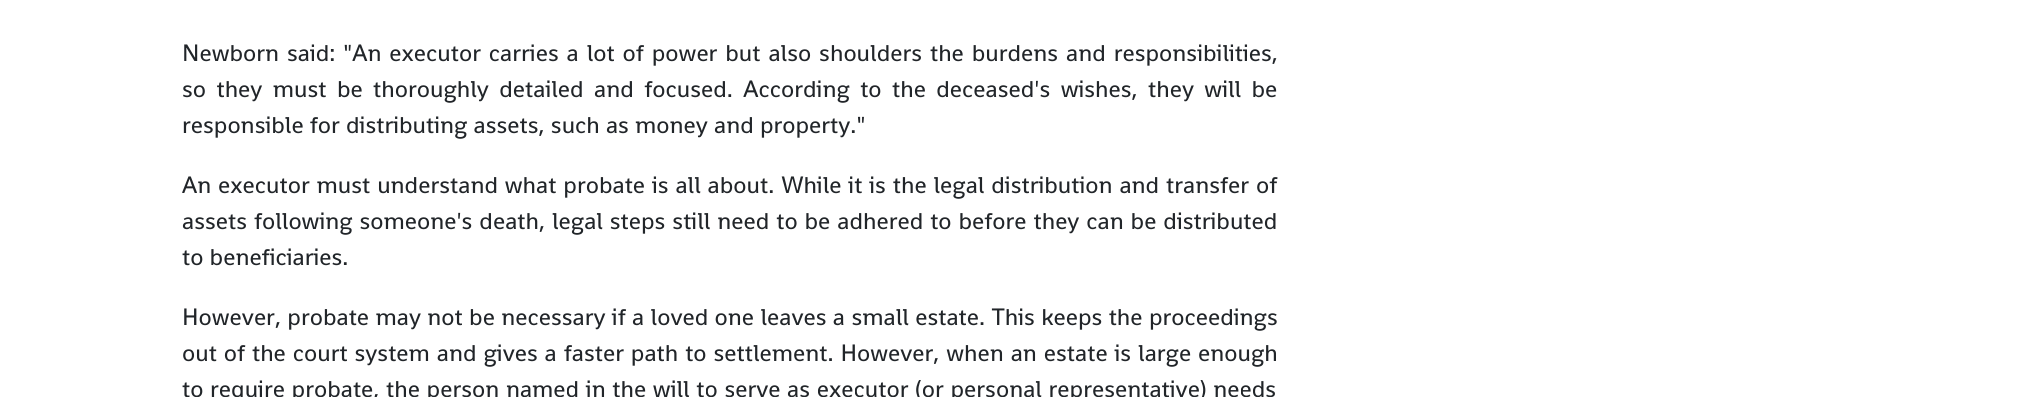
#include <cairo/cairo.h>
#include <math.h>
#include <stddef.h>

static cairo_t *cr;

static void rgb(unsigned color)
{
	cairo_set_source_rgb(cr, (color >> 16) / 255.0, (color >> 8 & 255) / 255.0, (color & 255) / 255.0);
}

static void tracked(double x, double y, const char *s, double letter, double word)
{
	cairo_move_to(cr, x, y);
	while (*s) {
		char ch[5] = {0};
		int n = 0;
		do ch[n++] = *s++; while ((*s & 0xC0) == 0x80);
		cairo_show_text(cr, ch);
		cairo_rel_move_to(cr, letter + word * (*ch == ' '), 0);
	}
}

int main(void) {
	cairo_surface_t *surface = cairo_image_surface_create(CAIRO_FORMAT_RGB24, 2029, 397);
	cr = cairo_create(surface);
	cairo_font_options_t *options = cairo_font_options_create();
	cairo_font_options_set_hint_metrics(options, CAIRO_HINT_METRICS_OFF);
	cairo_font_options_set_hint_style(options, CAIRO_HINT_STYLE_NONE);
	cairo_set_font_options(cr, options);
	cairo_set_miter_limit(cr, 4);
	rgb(0xffffff);
	cairo_paint(cr);
	cairo_select_font_face(cr, "Shanti", CAIRO_FONT_SLANT_NORMAL, CAIRO_FONT_WEIGHT_NORMAL);
	cairo_set_font_size(cr, 24);
	rgb(0x212529);
	tracked(182, 61, "Newborn said: \"An executor carries a lot of power but also shoulders the burdens and responsibilities,", 0, 1.75);
	tracked(182, 97, "so they must be thoroughly detailed and focused. According to the deceased's wishes, they will be", 0, 4.25);
	cairo_move_to(cr, 182, 133);
	cairo_show_text(cr, "responsible for distributing assets, such as money and property.\"");
	tracked(182, 193, "An executor must understand what probate is all about. While it is the legal distribution and transfer of", 0, 0.7);
	tracked(182, 229, "assets following someone's death, legal steps still need to be adhered to before they can be distributed", 0, 0.75);
	cairo_move_to(cr, 182, 265);
	cairo_show_text(cr, "to beneficiaries.");
	tracked(182, 325, "However, probate may not be necessary if a loved one leaves a small estate. This keeps the proceedings", 0, 0.2);
	tracked(182, 361, "out of the court system and gives a faster path to settlement. However, when an estate is large enough", 0, 0.75);
	tracked(182, 397, "to require probate, the person named in the will to serve as executor (or personal representative) needs", 0, 0.5);
	cairo_surface_write_to_png(surface, "page.png");
	cairo_font_options_destroy(options);
	cairo_destroy(cr);
	cairo_surface_destroy(surface);
	return 0;
}
